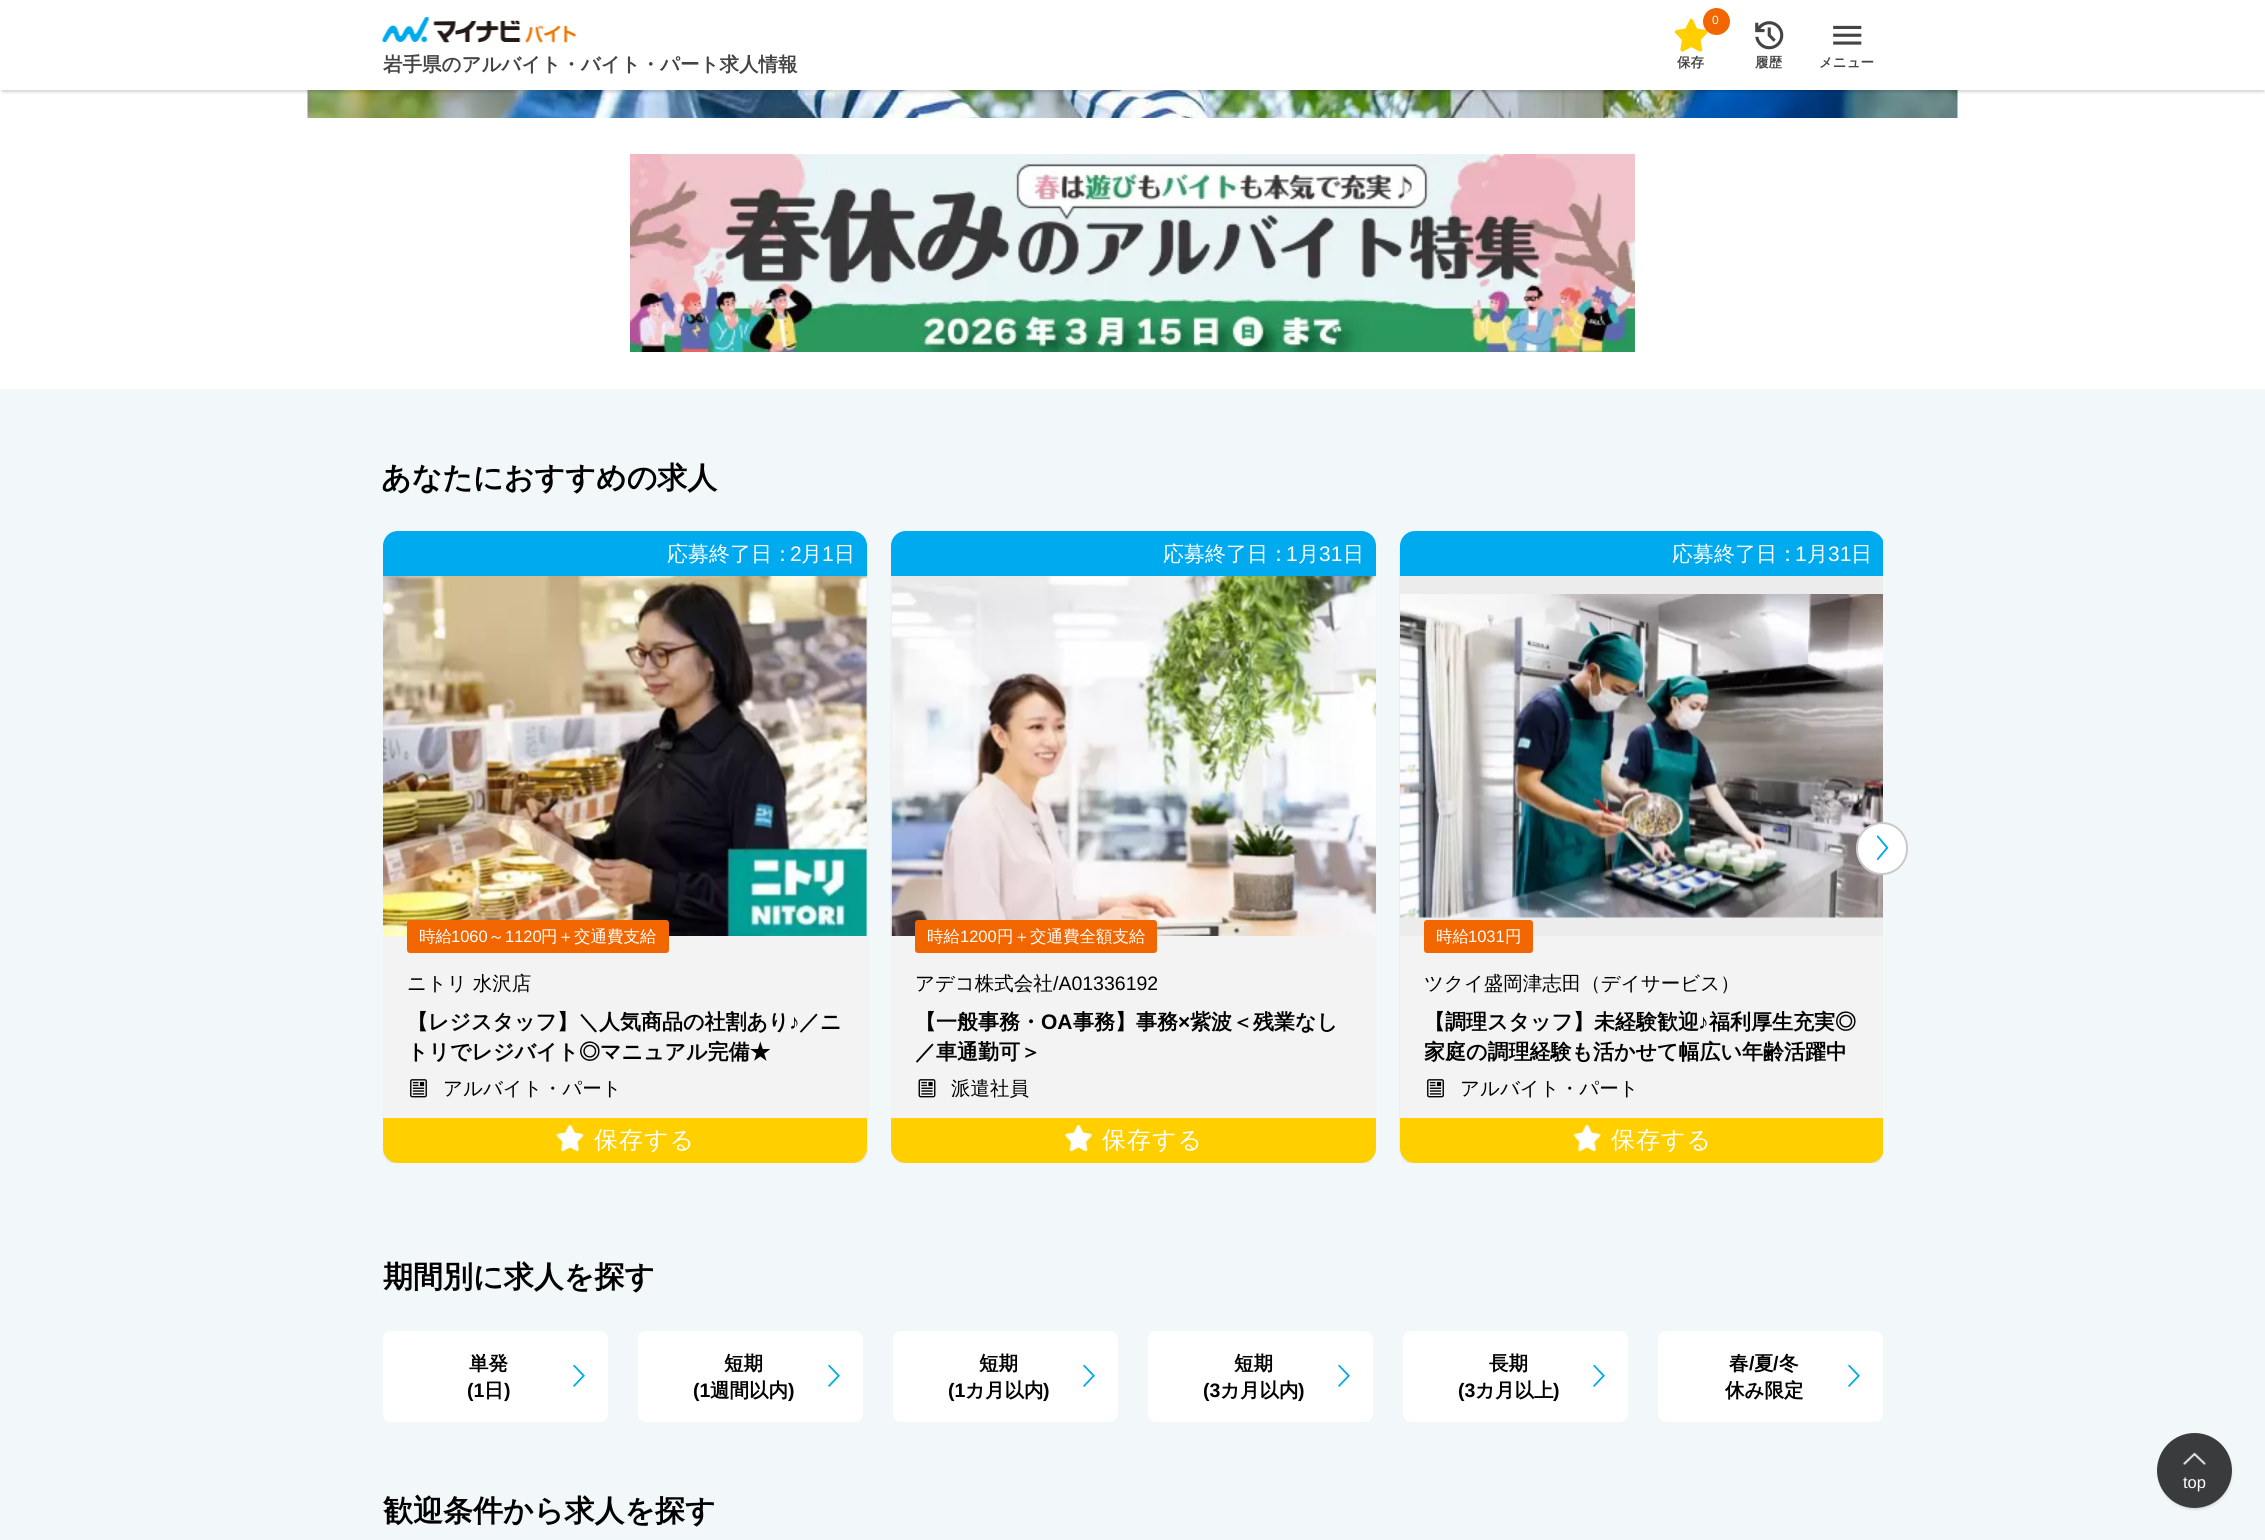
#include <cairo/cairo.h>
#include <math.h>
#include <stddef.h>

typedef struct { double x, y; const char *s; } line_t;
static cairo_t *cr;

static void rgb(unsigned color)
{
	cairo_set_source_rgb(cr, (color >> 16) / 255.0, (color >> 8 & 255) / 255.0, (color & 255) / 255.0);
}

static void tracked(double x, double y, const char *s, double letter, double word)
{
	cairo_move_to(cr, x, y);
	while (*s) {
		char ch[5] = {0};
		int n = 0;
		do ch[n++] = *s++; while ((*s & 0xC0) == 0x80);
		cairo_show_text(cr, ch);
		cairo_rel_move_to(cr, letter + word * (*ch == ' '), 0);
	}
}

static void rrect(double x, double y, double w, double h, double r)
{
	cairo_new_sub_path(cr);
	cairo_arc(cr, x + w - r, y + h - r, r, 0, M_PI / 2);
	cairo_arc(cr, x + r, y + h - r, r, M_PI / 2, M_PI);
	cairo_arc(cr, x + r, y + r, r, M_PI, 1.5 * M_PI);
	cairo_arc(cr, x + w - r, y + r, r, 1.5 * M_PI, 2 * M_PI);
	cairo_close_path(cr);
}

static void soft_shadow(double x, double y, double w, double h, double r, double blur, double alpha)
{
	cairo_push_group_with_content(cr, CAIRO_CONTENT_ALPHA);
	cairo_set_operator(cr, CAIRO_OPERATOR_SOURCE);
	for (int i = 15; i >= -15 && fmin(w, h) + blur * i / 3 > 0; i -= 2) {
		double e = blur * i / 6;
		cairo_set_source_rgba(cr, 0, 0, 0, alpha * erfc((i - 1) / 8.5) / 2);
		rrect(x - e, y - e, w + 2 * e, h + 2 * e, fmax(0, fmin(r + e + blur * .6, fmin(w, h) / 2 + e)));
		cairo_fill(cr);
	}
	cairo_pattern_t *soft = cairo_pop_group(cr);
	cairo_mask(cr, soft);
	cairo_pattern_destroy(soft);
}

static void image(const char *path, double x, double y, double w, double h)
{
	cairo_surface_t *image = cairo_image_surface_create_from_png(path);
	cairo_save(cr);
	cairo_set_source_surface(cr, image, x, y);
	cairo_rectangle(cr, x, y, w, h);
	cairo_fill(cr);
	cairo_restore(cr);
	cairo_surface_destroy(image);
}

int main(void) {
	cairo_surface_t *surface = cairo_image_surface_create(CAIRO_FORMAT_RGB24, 2265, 1540);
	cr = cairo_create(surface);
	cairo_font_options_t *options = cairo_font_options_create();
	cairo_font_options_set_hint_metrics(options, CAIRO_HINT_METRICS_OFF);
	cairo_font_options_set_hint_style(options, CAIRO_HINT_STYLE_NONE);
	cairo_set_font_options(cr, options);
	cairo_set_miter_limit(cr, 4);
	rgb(0xffffff);
	cairo_paint(cr);
	image("img/5.png", 307, 90, 1651, 28);
	rgb(0x000000);
	soft_shadow(2, 5, 2262, 87, 0, 1.5, 0.18);
	rgb(0xffffff);
	cairo_rectangle(cr, 0, 3, 2265, 87);
	cairo_fill(cr);
	image("img/1.png", 382, 17, 195, 26);
	image("img/2.png", 1674, 18, 34, 34);
	rgb(0xf26600);
	cairo_arc(cr, 1716.5, 21.5, 13.5, 0, 2 * M_PI);
	cairo_fill(cr);
	image("img/3.png", 1755, 21, 29, 29);
	image("img/4.png", 1833, 25, 29, 20);
	image("img/6.png", 630, 154, 1005, 198);
	rgb(0xf2f8f9);
	cairo_rectangle(cr, 0, 389, 2265, 1151);
	cairo_fill(cr);
	cairo_save(cr);
	cairo_rectangle(cr, 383, 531, 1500, 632);
	cairo_clip(cr);
	rgb(0x000000);
	soft_shadow(384, 536, 482, 628, 14, 1.5, 0.18);
	cairo_restore(cr);
	rgb(0xf3f3f3);
	rrect(383, 531, 484, 632, 15);
	cairo_fill(cr);
	rgb(0x00aaee);
	cairo_new_path(cr);
	cairo_move_to(cr, 398, 531);
	cairo_line_to(cr, 852, 531);
	cairo_curve_to(cr, 860.5, 531, 867, 537.5, 867, 546);
	cairo_line_to(cr, 867, 576);
	cairo_line_to(cr, 383, 576);
	cairo_line_to(cr, 383, 546);
	cairo_curve_to(cr, 383, 537.5, 389.5, 531, 398, 531);
	cairo_close_path(cr);
	cairo_fill(cr);
	rgb(0xececec);
	cairo_rectangle(cr, 866, 576, 1, 360);
	cairo_fill(cr);
	image("img/7.png", 383, 576, 485, 360);
	rgb(0xf26600);
	rrect(407, 920, 262, 33, 3);
	cairo_fill(cr);
	image("img/8.png", 410, 1079, 17, 19);
	rgb(0xffcf00);
	cairo_new_path(cr);
	cairo_move_to(cr, 383, 1118);
	cairo_line_to(cr, 867, 1118);
	cairo_line_to(cr, 867, 1148);
	cairo_curve_to(cr, 867, 1156.5, 860.5, 1163, 852, 1163);
	cairo_line_to(cr, 398, 1163);
	cairo_curve_to(cr, 389.5, 1163, 383, 1156.5, 383, 1148);
	cairo_close_path(cr);
	cairo_fill(cr);
	image("img/9.png", 556, 1125, 28, 27);
	cairo_save(cr);
	cairo_rectangle(cr, 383, 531, 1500, 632);
	cairo_clip(cr);
	rgb(0x000000);
	soft_shadow(893, 536, 481, 628, 14, 1.5, 0.18);
	cairo_restore(cr);
	rgb(0xf3f3f3);
	rrect(891, 531, 485, 632, 15);
	cairo_fill(cr);
	rgb(0x00aaee);
	cairo_new_path(cr);
	cairo_move_to(cr, 906, 531);
	cairo_line_to(cr, 1361, 531);
	cairo_curve_to(cr, 1369.5, 531, 1376, 537.5, 1376, 546);
	cairo_line_to(cr, 1376, 576);
	cairo_line_to(cr, 891, 576);
	cairo_line_to(cr, 891, 546);
	cairo_curve_to(cr, 891, 537.5, 897.5, 531, 906, 531);
	cairo_close_path(cr);
	cairo_fill(cr);
	rgb(0xececec);
	cairo_rectangle(cr, 891, 576, 1, 360);
	cairo_fill(cr);
	image("img/10.png", 890, 576, 486, 360);
	rgb(0xf26600);
	rrect(915, 920, 242, 33, 3);
	cairo_fill(cr);
	image("img/11.png", 918, 1079, 18, 19);
	rgb(0xffcf00);
	cairo_new_path(cr);
	cairo_move_to(cr, 891, 1118);
	cairo_line_to(cr, 1376, 1118);
	cairo_line_to(cr, 1376, 1148);
	cairo_curve_to(cr, 1376, 1156.5, 1369.5, 1163, 1361, 1163);
	cairo_line_to(cr, 906, 1163);
	cairo_curve_to(cr, 897.5, 1163, 891, 1156.5, 891, 1148);
	cairo_close_path(cr);
	cairo_fill(cr);
	image("img/12.png", 1065, 1125, 27, 27);
	cairo_save(cr);
	cairo_rectangle(cr, 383, 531, 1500, 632);
	cairo_clip(cr);
	rgb(0x000000);
	soft_shadow(1401, 536, 482, 628, 14, 1.5, 0.18);
	cairo_restore(cr);
	cairo_save(cr);
	cairo_rectangle(cr, 383, 531, 1500, 632);
	cairo_clip(cr);
	rgb(0xf3f3f3);
	rrect(1400, 531, 484, 632, 15);
	cairo_fill(cr);
	cairo_restore(cr);
	cairo_save(cr);
	rrect(1400, 531, 484, 632, 15);
	cairo_clip(cr);
	rgb(0x00aaee);
	cairo_new_path(cr);
	cairo_move_to(cr, 1415, 531);
	cairo_line_to(cr, 1883, 531);
	cairo_line_to(cr, 1883, 576);
	cairo_line_to(cr, 1400, 576);
	cairo_line_to(cr, 1400, 546);
	cairo_curve_to(cr, 1400, 537.5, 1406.5, 531, 1415, 531);
	cairo_close_path(cr);
	cairo_fill(cr);
	cairo_restore(cr);
	rgb(0xececec);
	cairo_rectangle(cr, 1400, 576, 483, 360);
	cairo_fill(cr);
	image("img/13.png", 1400, 594, 483, 324);
	rgb(0xf26600);
	rrect(1424, 920, 109, 33, 3);
	cairo_fill(cr);
	image("img/8.png", 1427, 1079, 17, 19);
	cairo_save(cr);
	cairo_rectangle(cr, 383, 531, 1500, 632);
	cairo_clip(cr);
	rgb(0xffcf00);
	cairo_new_path(cr);
	cairo_move_to(cr, 1400, 1118);
	cairo_line_to(cr, 1884, 1118);
	cairo_line_to(cr, 1884, 1148);
	cairo_curve_to(cr, 1884, 1156.5, 1877.5, 1163, 1869, 1163);
	cairo_line_to(cr, 1415, 1163);
	cairo_curve_to(cr, 1406.5, 1163, 1400, 1156.5, 1400, 1148);
	cairo_close_path(cr);
	cairo_fill(cr);
	cairo_restore(cr);
	image("img/14.png", 1573, 1125, 28, 27);
	rgb(0xffffff);
	rrect(1857, 823, 50, 51, 25);
	cairo_fill_preserve(cr);
	rgb(0xc9c9c9);
	cairo_stroke(cr);
	image("img/15.png", 1877, 835, 12, 26);
	rgb(0xffffff);
	rrect(383, 1331, 225, 91, 8);
	cairo_fill(cr);
	image("img/16.png", 573, 1365, 12, 22);
	rrect(638, 1331, 225, 91, 8);
	cairo_fill(cr);
	image("img/16.png", 828, 1365, 12, 22);
	rrect(893, 1331, 225, 91, 8);
	cairo_fill(cr);
	image("img/16.png", 1083, 1365, 12, 22);
	rrect(1148, 1331, 225, 91, 8);
	cairo_fill(cr);
	image("img/16.png", 1338, 1365, 12, 22);
	rrect(1403, 1331, 225, 91, 8);
	cairo_fill(cr);
	image("img/16.png", 1593, 1365, 12, 22);
	rrect(1658, 1331, 225, 91, 8);
	cairo_fill(cr);
	image("img/16.png", 1848, 1365, 12, 22);
	cairo_save(cr);
	cairo_set_fill_rule(cr, CAIRO_FILL_RULE_EVEN_ODD);
	cairo_new_path(cr);
	cairo_move_to(cr, 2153, 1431);
	cairo_line_to(cr, 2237, 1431);
	cairo_line_to(cr, 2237, 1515);
	cairo_line_to(cr, 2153, 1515);
	cairo_close_path(cr);
	cairo_move_to(cr, 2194.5, 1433);
	cairo_curve_to(cr, 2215, 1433, 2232, 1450, 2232, 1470.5);
	cairo_curve_to(cr, 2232, 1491, 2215, 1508, 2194.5, 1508);
	cairo_curve_to(cr, 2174, 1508, 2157, 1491, 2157, 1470.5);
	cairo_curve_to(cr, 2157, 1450, 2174, 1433, 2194.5, 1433);
	cairo_close_path(cr);
	cairo_clip(cr);
	rgb(0x000000);
	soft_shadow(2159, 1437, 72, 72, 36, 1.5, 0.18);
	cairo_restore(cr);
	cairo_set_source_rgba(cr, 0, 0, 0, 0.76);
	cairo_arc(cr, 2194.5, 1470.5, 37.5, 0, 2 * M_PI);
	cairo_fill(cr);
	image("img/17.png", 2183, 1452, 24, 13);
	cairo_select_font_face(cr, "WenQuanYi Zen Hei", CAIRO_FONT_SLANT_NORMAL, CAIRO_FONT_WEIGHT_BOLD);
	cairo_set_font_size(cr, 19.5);
	rgb(0x444444);
	cairo_move_to(cr, 383, 71);
	cairo_show_text(cr, "岩手県のアルバイト・バイト・パート求人情報");
	cairo_select_font_face(cr, "Liberation Sans", CAIRO_FONT_SLANT_NORMAL, CAIRO_FONT_WEIGHT_NORMAL);
	cairo_set_font_size(cr, 12);
	rgb(0xffffff);
	cairo_move_to(cr, 1712, 24);
	cairo_show_text(cr, "0");
	cairo_select_font_face(cr, "WenQuanYi Zen Hei", CAIRO_FONT_SLANT_NORMAL, CAIRO_FONT_WEIGHT_BOLD);
	cairo_set_font_size(cr, 13.5);
	rgb(0x444444);
	{
		static const line_t items[] = {
			{1677, 67, "保存"},
			{1755, 67, "履歴"},
			{1819, 67, "メニュー"},
		};
		for (size_t i = 0; i < sizeof items / sizeof *items; i++) {
			cairo_move_to(cr, items[i].x, items[i].y);
			cairo_show_text(cr, items[i].s);
		}
	}
	cairo_set_font_size(cr, 30);
	rgb(0x000000);
	cairo_move_to(cr, 381, 488);
	cairo_show_text(cr, "あなたにおすすめの求人");
	cairo_select_font_face(cr, "WenQuanYi Zen Hei Medium", CAIRO_FONT_SLANT_NORMAL, CAIRO_FONT_WEIGHT_NORMAL);
	cairo_set_font_size(cr, 21);
	rgb(0xffffff);
	cairo_move_to(cr, 667, 561);
	cairo_show_text(cr, "応募終了日：");
	cairo_select_font_face(cr, "Liberation Sans", CAIRO_FONT_SLANT_NORMAL, CAIRO_FONT_WEIGHT_NORMAL);
	cairo_move_to(cr, 790, 561);
	cairo_show_text(cr, "2");
	cairo_select_font_face(cr, "WenQuanYi Zen Hei Medium", CAIRO_FONT_SLANT_NORMAL, CAIRO_FONT_WEIGHT_NORMAL);
	cairo_move_to(cr, 801, 561);
	cairo_show_text(cr, "月");
	cairo_select_font_face(cr, "Liberation Sans", CAIRO_FONT_SLANT_NORMAL, CAIRO_FONT_WEIGHT_NORMAL);
	cairo_move_to(cr, 822, 561);
	cairo_show_text(cr, "1");
	cairo_select_font_face(cr, "WenQuanYi Zen Hei Medium", CAIRO_FONT_SLANT_NORMAL, CAIRO_FONT_WEIGHT_NORMAL);
	cairo_move_to(cr, 834, 561);
	cairo_show_text(cr, "日");
	cairo_set_font_size(cr, 16.5);
	cairo_move_to(cr, 419, 942);
	cairo_show_text(cr, "時給");
	cairo_select_font_face(cr, "Liberation Sans", CAIRO_FONT_SLANT_NORMAL, CAIRO_FONT_WEIGHT_NORMAL);
	cairo_move_to(cr, 451, 942);
	cairo_show_text(cr, "1060");
	cairo_select_font_face(cr, "WenQuanYi Zen Hei Medium", CAIRO_FONT_SLANT_NORMAL, CAIRO_FONT_WEIGHT_NORMAL);
	cairo_move_to(cr, 488, 942);
	cairo_show_text(cr, "～");
	cairo_select_font_face(cr, "Liberation Sans", CAIRO_FONT_SLANT_NORMAL, CAIRO_FONT_WEIGHT_NORMAL);
	cairo_move_to(cr, 505, 942);
	cairo_show_text(cr, "1120");
	cairo_select_font_face(cr, "WenQuanYi Zen Hei Medium", CAIRO_FONT_SLANT_NORMAL, CAIRO_FONT_WEIGHT_NORMAL);
	cairo_move_to(cr, 541, 942);
	cairo_show_text(cr, "円＋交通費支給");
	cairo_set_font_size(cr, 19.5);
	rgb(0x000000);
	cairo_move_to(cr, 407, 990);
	cairo_show_text(cr, "ニトリ 水沢店");
	cairo_select_font_face(cr, "WenQuanYi Zen Hei", CAIRO_FONT_SLANT_NORMAL, CAIRO_FONT_WEIGHT_BOLD);
	cairo_set_font_size(cr, 21);
	cairo_move_to(cr, 407, 1029);
	cairo_show_text(cr, "【レジスタッフ】＼人気商品の社割あり");
	cairo_select_font_face(cr, "Liberation Sans", CAIRO_FONT_SLANT_NORMAL, CAIRO_FONT_WEIGHT_BOLD);
	cairo_move_to(cr, 789, 1029);
	cairo_show_text(cr, "♪");
	cairo_select_font_face(cr, "WenQuanYi Zen Hei", CAIRO_FONT_SLANT_NORMAL, CAIRO_FONT_WEIGHT_BOLD);
	cairo_move_to(cr, 799, 1029);
	cairo_show_text(cr, "／ニ");
	cairo_move_to(cr, 407, 1059);
	cairo_show_text(cr, "トリでレジバイト◎マニュアル完備★");
	cairo_select_font_face(cr, "WenQuanYi Zen Hei Medium", CAIRO_FONT_SLANT_NORMAL, CAIRO_FONT_WEIGHT_NORMAL);
	cairo_set_font_size(cr, 19.5);
	cairo_move_to(cr, 443, 1095);
	cairo_show_text(cr, "アルバイト・パート");
	cairo_set_font_size(cr, 24);
	rgb(0xffffff);
	tracked(594, 1148, "保存する", 1, 0);
	cairo_set_font_size(cr, 21);
	cairo_move_to(cr, 1163, 561);
	cairo_show_text(cr, "応募終了日：");
	cairo_select_font_face(cr, "Liberation Sans", CAIRO_FONT_SLANT_NORMAL, CAIRO_FONT_WEIGHT_NORMAL);
	cairo_move_to(cr, 1286, 561);
	cairo_show_text(cr, "1");
	cairo_select_font_face(cr, "WenQuanYi Zen Hei Medium", CAIRO_FONT_SLANT_NORMAL, CAIRO_FONT_WEIGHT_NORMAL);
	cairo_move_to(cr, 1298, 561);
	cairo_show_text(cr, "月");
	cairo_select_font_face(cr, "Liberation Sans", CAIRO_FONT_SLANT_NORMAL, CAIRO_FONT_WEIGHT_NORMAL);
	cairo_move_to(cr, 1319, 561);
	cairo_show_text(cr, "31");
	cairo_select_font_face(cr, "WenQuanYi Zen Hei Medium", CAIRO_FONT_SLANT_NORMAL, CAIRO_FONT_WEIGHT_NORMAL);
	cairo_move_to(cr, 1343, 561);
	cairo_show_text(cr, "日");
	cairo_set_font_size(cr, 16.5);
	cairo_move_to(cr, 927, 942);
	cairo_show_text(cr, "時給");
	cairo_select_font_face(cr, "Liberation Sans", CAIRO_FONT_SLANT_NORMAL, CAIRO_FONT_WEIGHT_NORMAL);
	cairo_move_to(cr, 960, 942);
	cairo_show_text(cr, "1200");
	cairo_select_font_face(cr, "WenQuanYi Zen Hei Medium", CAIRO_FONT_SLANT_NORMAL, CAIRO_FONT_WEIGHT_NORMAL);
	cairo_move_to(cr, 997, 942);
	cairo_show_text(cr, "円＋交通費全額支給");
	cairo_set_font_size(cr, 19.5);
	rgb(0x000000);
	cairo_move_to(cr, 915, 990);
	cairo_show_text(cr, "アデコ株式会社");
	cairo_select_font_face(cr, "Liberation Sans", CAIRO_FONT_SLANT_NORMAL, CAIRO_FONT_WEIGHT_NORMAL);
	cairo_move_to(cr, 1053, 990);
	cairo_show_text(cr, "/A01336192");
	cairo_select_font_face(cr, "WenQuanYi Zen Hei", CAIRO_FONT_SLANT_NORMAL, CAIRO_FONT_WEIGHT_BOLD);
	cairo_set_font_size(cr, 21);
	cairo_move_to(cr, 915, 1029);
	cairo_show_text(cr, "【一般事務・");
	cairo_select_font_face(cr, "Liberation Sans", CAIRO_FONT_SLANT_NORMAL, CAIRO_FONT_WEIGHT_BOLD);
	cairo_move_to(cr, 1041, 1029);
	cairo_show_text(cr, "OA");
	cairo_select_font_face(cr, "WenQuanYi Zen Hei", CAIRO_FONT_SLANT_NORMAL, CAIRO_FONT_WEIGHT_BOLD);
	cairo_move_to(cr, 1073, 1029);
	cairo_show_text(cr, "事務】事務");
	cairo_select_font_face(cr, "Liberation Sans", CAIRO_FONT_SLANT_NORMAL, CAIRO_FONT_WEIGHT_BOLD);
	cairo_move_to(cr, 1178, 1029);
	cairo_show_text(cr, "×");
	cairo_select_font_face(cr, "WenQuanYi Zen Hei", CAIRO_FONT_SLANT_NORMAL, CAIRO_FONT_WEIGHT_BOLD);
	cairo_move_to(cr, 1190, 1029);
	cairo_show_text(cr, "紫波＜残業なし");
	cairo_move_to(cr, 915, 1059);
	cairo_show_text(cr, "／車通勤可＞");
	cairo_select_font_face(cr, "WenQuanYi Zen Hei Medium", CAIRO_FONT_SLANT_NORMAL, CAIRO_FONT_WEIGHT_NORMAL);
	cairo_set_font_size(cr, 19.5);
	cairo_move_to(cr, 951, 1095);
	cairo_show_text(cr, "派遣社員");
	cairo_set_font_size(cr, 24);
	rgb(0xffffff);
	tracked(1102, 1148, "保存する", 1, 0);
	cairo_set_font_size(cr, 21);
	cairo_move_to(cr, 1672, 561);
	cairo_show_text(cr, "応募終了日：");
	cairo_select_font_face(cr, "Liberation Sans", CAIRO_FONT_SLANT_NORMAL, CAIRO_FONT_WEIGHT_NORMAL);
	cairo_move_to(cr, 1795, 561);
	cairo_show_text(cr, "1");
	cairo_select_font_face(cr, "WenQuanYi Zen Hei Medium", CAIRO_FONT_SLANT_NORMAL, CAIRO_FONT_WEIGHT_NORMAL);
	cairo_move_to(cr, 1807, 561);
	cairo_show_text(cr, "月");
	cairo_select_font_face(cr, "Liberation Sans", CAIRO_FONT_SLANT_NORMAL, CAIRO_FONT_WEIGHT_NORMAL);
	cairo_move_to(cr, 1828, 561);
	cairo_show_text(cr, "31");
	cairo_select_font_face(cr, "WenQuanYi Zen Hei Medium", CAIRO_FONT_SLANT_NORMAL, CAIRO_FONT_WEIGHT_NORMAL);
	cairo_move_to(cr, 1851, 561);
	cairo_show_text(cr, "日");
	cairo_set_font_size(cr, 16.5);
	cairo_move_to(cr, 1436, 942);
	cairo_show_text(cr, "時給");
	cairo_select_font_face(cr, "Liberation Sans", CAIRO_FONT_SLANT_NORMAL, CAIRO_FONT_WEIGHT_NORMAL);
	cairo_move_to(cr, 1468, 942);
	cairo_show_text(cr, "1031");
	cairo_select_font_face(cr, "WenQuanYi Zen Hei Medium", CAIRO_FONT_SLANT_NORMAL, CAIRO_FONT_WEIGHT_NORMAL);
	cairo_move_to(cr, 1505, 942);
	cairo_show_text(cr, "円");
	cairo_set_font_size(cr, 19.5);
	rgb(0x000000);
	cairo_move_to(cr, 1424, 990);
	cairo_show_text(cr, "ツクイ盛岡津志田（デイサービス）");
	cairo_select_font_face(cr, "WenQuanYi Zen Hei", CAIRO_FONT_SLANT_NORMAL, CAIRO_FONT_WEIGHT_BOLD);
	cairo_set_font_size(cr, 21);
	cairo_move_to(cr, 1424, 1029);
	cairo_show_text(cr, "【調理スタッフ】未経験歓迎");
	cairo_select_font_face(cr, "Liberation Sans", CAIRO_FONT_SLANT_NORMAL, CAIRO_FONT_WEIGHT_BOLD);
	cairo_move_to(cr, 1698, 1029);
	cairo_show_text(cr, "♪");
	cairo_select_font_face(cr, "WenQuanYi Zen Hei", CAIRO_FONT_SLANT_NORMAL, CAIRO_FONT_WEIGHT_BOLD);
	cairo_move_to(cr, 1709, 1029);
	cairo_show_text(cr, "福利厚生充実◎");
	cairo_move_to(cr, 1424, 1059);
	cairo_show_text(cr, "家庭の調理経験も活かせて幅広い年齢活躍中");
	cairo_select_font_face(cr, "WenQuanYi Zen Hei Medium", CAIRO_FONT_SLANT_NORMAL, CAIRO_FONT_WEIGHT_NORMAL);
	cairo_set_font_size(cr, 19.5);
	cairo_move_to(cr, 1460, 1095);
	cairo_show_text(cr, "アルバイト・パート");
	cairo_set_font_size(cr, 24);
	rgb(0xffffff);
	tracked(1611, 1148, "保存する", 1, 0);
	cairo_select_font_face(cr, "WenQuanYi Zen Hei", CAIRO_FONT_SLANT_NORMAL, CAIRO_FONT_WEIGHT_BOLD);
	cairo_set_font_size(cr, 30);
	rgb(0x000000);
	cairo_move_to(cr, 383, 1287);
	cairo_show_text(cr, "期間別に求人を探す");
	cairo_set_font_size(cr, 19.5);
	cairo_move_to(cr, 469, 1370);
	cairo_show_text(cr, "単発");
	cairo_select_font_face(cr, "Liberation Sans", CAIRO_FONT_SLANT_NORMAL, CAIRO_FONT_WEIGHT_BOLD);
	cairo_move_to(cr, 467, 1397);
	cairo_show_text(cr, "(1");
	cairo_select_font_face(cr, "WenQuanYi Zen Hei", CAIRO_FONT_SLANT_NORMAL, CAIRO_FONT_WEIGHT_BOLD);
	cairo_move_to(cr, 484, 1397);
	cairo_show_text(cr, "日");
	cairo_select_font_face(cr, "Liberation Sans", CAIRO_FONT_SLANT_NORMAL, CAIRO_FONT_WEIGHT_BOLD);
	cairo_move_to(cr, 504, 1397);
	cairo_show_text(cr, ")");
	cairo_select_font_face(cr, "WenQuanYi Zen Hei", CAIRO_FONT_SLANT_NORMAL, CAIRO_FONT_WEIGHT_BOLD);
	cairo_move_to(cr, 724, 1370);
	cairo_show_text(cr, "短期");
	cairo_select_font_face(cr, "Liberation Sans", CAIRO_FONT_SLANT_NORMAL, CAIRO_FONT_WEIGHT_BOLD);
	cairo_move_to(cr, 693, 1397);
	cairo_show_text(cr, "(1");
	cairo_select_font_face(cr, "WenQuanYi Zen Hei", CAIRO_FONT_SLANT_NORMAL, CAIRO_FONT_WEIGHT_BOLD);
	cairo_move_to(cr, 710, 1397);
	cairo_show_text(cr, "週間以内");
	cairo_select_font_face(cr, "Liberation Sans", CAIRO_FONT_SLANT_NORMAL, CAIRO_FONT_WEIGHT_BOLD);
	cairo_move_to(cr, 788, 1397);
	cairo_show_text(cr, ")");
	cairo_select_font_face(cr, "WenQuanYi Zen Hei", CAIRO_FONT_SLANT_NORMAL, CAIRO_FONT_WEIGHT_BOLD);
	cairo_move_to(cr, 979, 1370);
	cairo_show_text(cr, "短期");
	cairo_select_font_face(cr, "Liberation Sans", CAIRO_FONT_SLANT_NORMAL, CAIRO_FONT_WEIGHT_BOLD);
	cairo_move_to(cr, 948, 1397);
	cairo_show_text(cr, "(1");
	cairo_select_font_face(cr, "WenQuanYi Zen Hei", CAIRO_FONT_SLANT_NORMAL, CAIRO_FONT_WEIGHT_BOLD);
	cairo_move_to(cr, 965, 1397);
	cairo_show_text(cr, "カ月以内");
	cairo_select_font_face(cr, "Liberation Sans", CAIRO_FONT_SLANT_NORMAL, CAIRO_FONT_WEIGHT_BOLD);
	cairo_move_to(cr, 1043, 1397);
	cairo_show_text(cr, ")");
	cairo_select_font_face(cr, "WenQuanYi Zen Hei", CAIRO_FONT_SLANT_NORMAL, CAIRO_FONT_WEIGHT_BOLD);
	cairo_move_to(cr, 1234, 1370);
	cairo_show_text(cr, "短期");
	cairo_select_font_face(cr, "Liberation Sans", CAIRO_FONT_SLANT_NORMAL, CAIRO_FONT_WEIGHT_BOLD);
	cairo_move_to(cr, 1203, 1397);
	cairo_show_text(cr, "(3");
	cairo_select_font_face(cr, "WenQuanYi Zen Hei", CAIRO_FONT_SLANT_NORMAL, CAIRO_FONT_WEIGHT_BOLD);
	cairo_move_to(cr, 1220, 1397);
	cairo_show_text(cr, "カ月以内");
	cairo_select_font_face(cr, "Liberation Sans", CAIRO_FONT_SLANT_NORMAL, CAIRO_FONT_WEIGHT_BOLD);
	cairo_move_to(cr, 1298, 1397);
	cairo_show_text(cr, ")");
	cairo_select_font_face(cr, "WenQuanYi Zen Hei", CAIRO_FONT_SLANT_NORMAL, CAIRO_FONT_WEIGHT_BOLD);
	cairo_move_to(cr, 1489, 1370);
	cairo_show_text(cr, "長期");
	cairo_select_font_face(cr, "Liberation Sans", CAIRO_FONT_SLANT_NORMAL, CAIRO_FONT_WEIGHT_BOLD);
	cairo_move_to(cr, 1458, 1397);
	cairo_show_text(cr, "(3");
	cairo_select_font_face(cr, "WenQuanYi Zen Hei", CAIRO_FONT_SLANT_NORMAL, CAIRO_FONT_WEIGHT_BOLD);
	cairo_move_to(cr, 1475, 1397);
	cairo_show_text(cr, "カ月以上");
	cairo_select_font_face(cr, "Liberation Sans", CAIRO_FONT_SLANT_NORMAL, CAIRO_FONT_WEIGHT_BOLD);
	cairo_move_to(cr, 1553, 1397);
	cairo_show_text(cr, ")");
	cairo_select_font_face(cr, "WenQuanYi Zen Hei", CAIRO_FONT_SLANT_NORMAL, CAIRO_FONT_WEIGHT_BOLD);
	cairo_move_to(cr, 1729, 1370);
	cairo_show_text(cr, "春");
	cairo_select_font_face(cr, "Liberation Sans", CAIRO_FONT_SLANT_NORMAL, CAIRO_FONT_WEIGHT_BOLD);
	cairo_move_to(cr, 1749, 1370);
	cairo_show_text(cr, "/");
	cairo_select_font_face(cr, "WenQuanYi Zen Hei", CAIRO_FONT_SLANT_NORMAL, CAIRO_FONT_WEIGHT_BOLD);
	cairo_move_to(cr, 1754, 1370);
	cairo_show_text(cr, "夏");
	cairo_select_font_face(cr, "Liberation Sans", CAIRO_FONT_SLANT_NORMAL, CAIRO_FONT_WEIGHT_BOLD);
	cairo_move_to(cr, 1773, 1370);
	cairo_show_text(cr, "/");
	cairo_select_font_face(cr, "WenQuanYi Zen Hei", CAIRO_FONT_SLANT_NORMAL, CAIRO_FONT_WEIGHT_BOLD);
	cairo_move_to(cr, 1779, 1370);
	cairo_show_text(cr, "冬");
	cairo_move_to(cr, 1725, 1397);
	cairo_show_text(cr, "休み限定");
	cairo_set_font_size(cr, 30);
	cairo_move_to(cr, 383, 1521);
	cairo_show_text(cr, "歓迎条件から求人を探す");
	cairo_select_font_face(cr, "Liberation Sans", CAIRO_FONT_SLANT_NORMAL, CAIRO_FONT_WEIGHT_NORMAL);
	cairo_set_font_size(cr, 16.5);
	rgb(0xffffff);
	cairo_move_to(cr, 2183, 1488);
	cairo_show_text(cr, "top");
	cairo_surface_write_to_png(surface, "page.png");
	cairo_font_options_destroy(options);
	cairo_destroy(cr);
	cairo_surface_destroy(surface);
	return 0;
}
